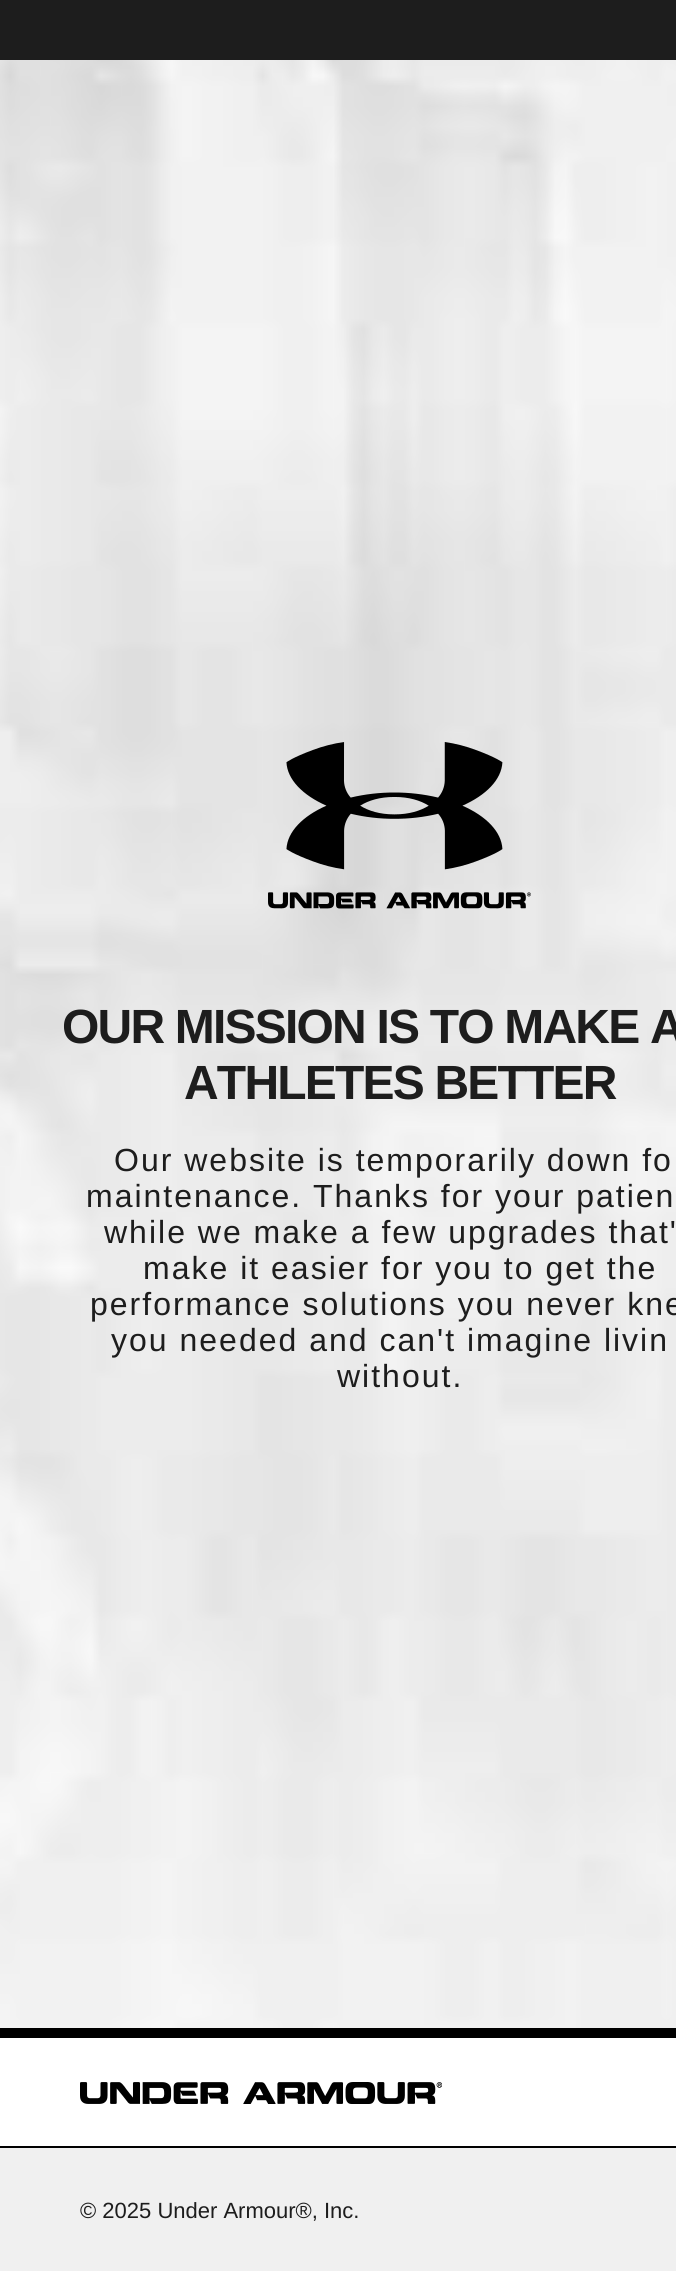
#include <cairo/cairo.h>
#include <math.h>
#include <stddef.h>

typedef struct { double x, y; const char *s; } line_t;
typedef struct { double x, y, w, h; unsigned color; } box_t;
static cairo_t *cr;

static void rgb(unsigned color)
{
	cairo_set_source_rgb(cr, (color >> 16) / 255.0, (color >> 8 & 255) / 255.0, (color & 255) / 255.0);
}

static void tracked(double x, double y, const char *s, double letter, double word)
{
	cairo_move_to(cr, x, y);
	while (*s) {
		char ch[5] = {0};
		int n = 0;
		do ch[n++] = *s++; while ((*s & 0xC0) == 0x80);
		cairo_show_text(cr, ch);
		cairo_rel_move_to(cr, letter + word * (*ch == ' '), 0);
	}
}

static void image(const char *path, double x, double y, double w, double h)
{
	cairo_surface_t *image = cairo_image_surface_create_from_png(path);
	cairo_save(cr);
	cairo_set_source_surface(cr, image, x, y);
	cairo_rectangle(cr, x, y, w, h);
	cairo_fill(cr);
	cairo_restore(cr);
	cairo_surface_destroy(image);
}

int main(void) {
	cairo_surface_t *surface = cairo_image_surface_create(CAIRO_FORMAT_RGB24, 676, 2271);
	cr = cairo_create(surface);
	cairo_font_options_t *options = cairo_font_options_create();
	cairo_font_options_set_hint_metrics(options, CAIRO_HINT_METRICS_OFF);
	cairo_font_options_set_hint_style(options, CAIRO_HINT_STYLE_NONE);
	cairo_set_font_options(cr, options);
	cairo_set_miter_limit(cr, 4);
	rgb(0xffffff);
	cairo_paint(cr);
	rgb(0x1d1d1d);
	cairo_rectangle(cr, 0, 0, 676, 60);
	cairo_fill(cr);
	image("img/1.png", 0, 60, 676, 1968);
	image("img/2.png", 268, 742, 263, 167);
	{
		static const box_t items[] = {
			{0, 2148, 676, 123, 0xf0f0f0},
			{0, 2028, 676, 10, 0x000000},
			{0, 2146, 676, 2, 0x000000},
		};
		for (size_t i = 0; i < sizeof items / sizeof *items; i++) {
			rgb(items[i].color);
			cairo_rectangle(cr, items[i].x, items[i].y, items[i].w, items[i].h);
			cairo_fill(cr);
		}
	}
	image("img/3.png", 80, 2082, 362, 22);
	cairo_select_font_face(cr, "Liberation Sans", CAIRO_FONT_SLANT_NORMAL, CAIRO_FONT_WEIGHT_BOLD);
	cairo_set_font_size(cr, 48);
	rgb(0x1d1d1d);
	tracked(62, 1043, "OUR MISSION IS TO MAKE A", -1.8, 0);
	tracked(184, 1099, "ATHLETES BETTER", -1.8, 0);
	cairo_select_font_face(cr, "Liberation Sans", CAIRO_FONT_SLANT_NORMAL, CAIRO_FONT_WEIGHT_NORMAL);
	cairo_set_font_size(cr, 32);
	{
		static const line_t items[] = {
			{114, 1171, "Our website is temporarily down fo"},
			{86, 1207, "maintenance. Thanks for your patien"},
			{104, 1243, "while we make a few upgrades that'"},
			{143, 1279, "make it easier for you to get the"},
			{90, 1315, "performance solutions you never kne"},
			{111, 1351, "you needed and can't imagine livin"},
			{337, 1387, "without."},
		};
		for (size_t i = 0; i < sizeof items / sizeof *items; i++) {
			tracked(items[i].x, items[i].y, items[i].s, 2, 0);
		}
	}
	cairo_set_font_size(cr, 22);
	cairo_move_to(cr, 80, 2218);
	cairo_show_text(cr, "© 2025 Under Armour®, Inc.");
	cairo_surface_write_to_png(surface, "page.png");
	cairo_font_options_destroy(options);
	cairo_destroy(cr);
	cairo_surface_destroy(surface);
	return 0;
}
